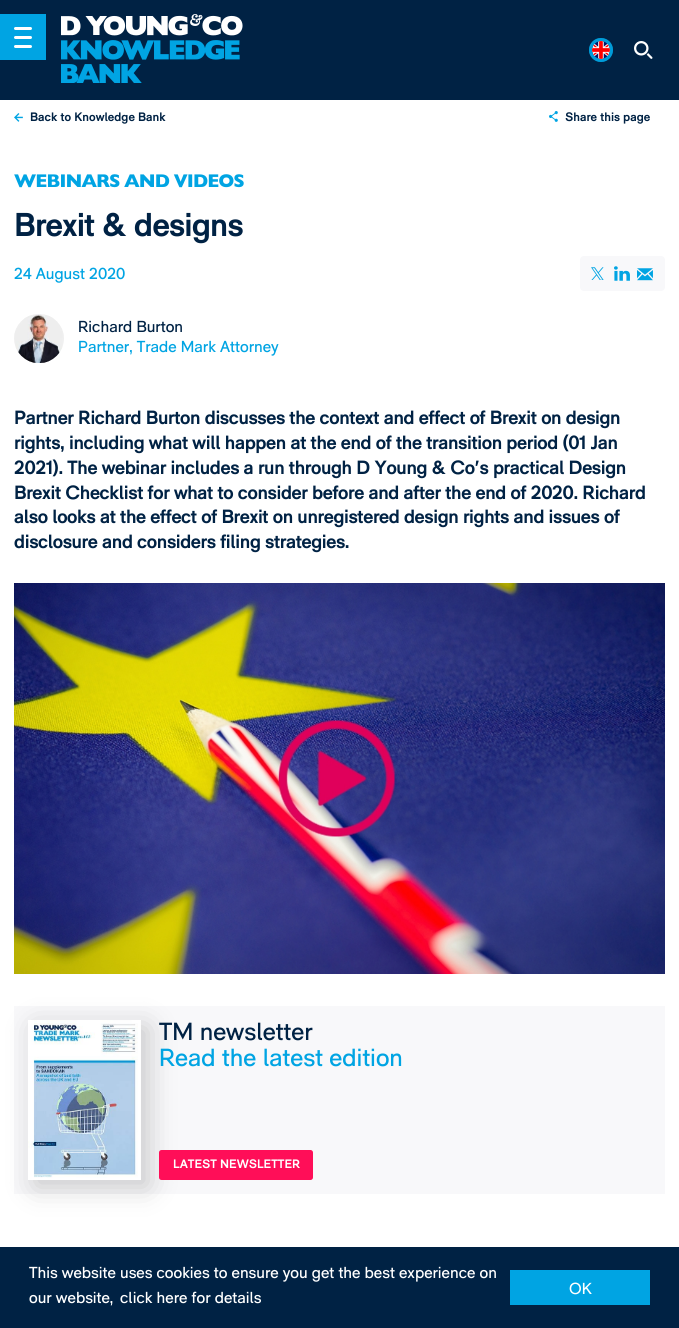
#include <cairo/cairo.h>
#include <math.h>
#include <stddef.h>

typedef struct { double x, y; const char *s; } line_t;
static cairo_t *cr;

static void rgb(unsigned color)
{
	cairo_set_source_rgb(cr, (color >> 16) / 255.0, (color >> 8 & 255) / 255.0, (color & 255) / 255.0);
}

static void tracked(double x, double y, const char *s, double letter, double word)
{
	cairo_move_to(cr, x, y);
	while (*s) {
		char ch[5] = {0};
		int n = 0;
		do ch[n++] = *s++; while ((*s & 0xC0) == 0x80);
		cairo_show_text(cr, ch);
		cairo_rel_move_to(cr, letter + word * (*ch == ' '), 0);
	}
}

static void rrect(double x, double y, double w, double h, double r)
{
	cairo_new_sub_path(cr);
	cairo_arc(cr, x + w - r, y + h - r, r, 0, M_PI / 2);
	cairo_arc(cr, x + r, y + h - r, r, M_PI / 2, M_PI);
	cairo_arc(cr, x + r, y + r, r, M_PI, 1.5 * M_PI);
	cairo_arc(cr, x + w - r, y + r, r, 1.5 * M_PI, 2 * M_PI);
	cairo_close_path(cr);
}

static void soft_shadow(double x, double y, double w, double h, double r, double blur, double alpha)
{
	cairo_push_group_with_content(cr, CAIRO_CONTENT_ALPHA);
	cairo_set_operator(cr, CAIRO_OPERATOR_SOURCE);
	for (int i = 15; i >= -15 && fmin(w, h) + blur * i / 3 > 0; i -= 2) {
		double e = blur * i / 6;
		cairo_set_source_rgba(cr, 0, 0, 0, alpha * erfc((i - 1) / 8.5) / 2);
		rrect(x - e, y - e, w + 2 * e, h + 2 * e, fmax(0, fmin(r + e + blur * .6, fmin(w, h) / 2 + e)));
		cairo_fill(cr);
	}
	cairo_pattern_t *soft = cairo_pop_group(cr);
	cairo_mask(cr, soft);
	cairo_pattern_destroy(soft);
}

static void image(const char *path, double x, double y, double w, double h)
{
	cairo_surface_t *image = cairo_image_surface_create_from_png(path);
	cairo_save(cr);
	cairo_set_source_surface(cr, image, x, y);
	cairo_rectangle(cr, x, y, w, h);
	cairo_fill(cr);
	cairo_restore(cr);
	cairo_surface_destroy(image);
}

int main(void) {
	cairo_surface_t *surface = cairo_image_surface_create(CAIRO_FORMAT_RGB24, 679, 1328);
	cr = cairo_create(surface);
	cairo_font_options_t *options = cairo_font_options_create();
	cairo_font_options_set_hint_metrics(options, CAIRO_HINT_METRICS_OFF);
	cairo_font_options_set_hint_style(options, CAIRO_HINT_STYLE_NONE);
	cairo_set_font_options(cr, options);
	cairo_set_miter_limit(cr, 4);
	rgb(0xffffff);
	cairo_paint(cr);
	rgb(0x002244);
	cairo_rectangle(cr, 0, 0, 679, 100);
	cairo_fill(cr);
	rgb(0x00a4e3);
	cairo_rectangle(cr, 0, 14, 46, 46);
	cairo_fill(cr);
	rgb(0xffffff);
	rrect(14, 36, 18, 3, 1.5);
	cairo_fill(cr);
	rrect(14, 27, 18, 3, 1.5);
	cairo_fill(cr);
	rrect(14, 45, 18, 3, 1.5);
	cairo_fill(cr);
	image("img/1.png", 61, 14, 182, 22);
	image("img/2.png", 61, 40, 179, 43);
	rgb(0x0084bb);
	cairo_arc(cr, 601, 50, 12, 0, 2 * M_PI);
	cairo_fill(cr);
	cairo_arc(cr, 601, 50, 10.5, 0, 2 * M_PI);
	cairo_set_source_rgba(cr, 0, 0.643, 0.89, 0.75);
	cairo_set_line_width(cr, 3);
	cairo_stroke(cr);
	image("img/3.png", 592, 41, 18, 18);
	image("img/4.png", 634, 41, 19, 18);
	image("img/5.png", 14, 113, 9, 9);
	image("img/6.png", 549, 111, 9, 11);
	image("img/7.png", 14, 174, 230, 14);
	rgb(0xf8f8fa);
	rrect(580, 256, 85, 35, 4);
	cairo_fill(cr);
	image("img/8.png", 591, 267, 13, 13);
	image("img/9.png", 614, 266, 16, 15);
	image("img/10.png", 637, 268, 16, 13);
	image("img/11.png", 14, 314, 50, 49);
	image("img/12.png", 14, 583, 651, 391);
	cairo_rectangle(cr, 14, 1006, 651, 188);
	cairo_fill(cr);
	rgb(0x000000);
	soft_shadow(35, 1027, 113, 160, 0, 14, 0.2);
	image("img/13.png", 28, 1020, 113, 160);
	rgb(0xff0e58);
	rrect(159, 1150, 154, 30, 2.5);
	cairo_fill(cr);
	rgb(0x002244);
	cairo_rectangle(cr, 0, 1247, 679, 81);
	cairo_fill(cr);
	rgb(0x00a4e3);
	cairo_rectangle(cr, 510, 1270, 140, 35);
	cairo_fill(cr);
	cairo_select_font_face(cr, "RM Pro", CAIRO_FONT_SLANT_NORMAL, CAIRO_FONT_WEIGHT_BOLD);
	cairo_set_font_size(cr, 12.25);
	rgb(0x002244);
	cairo_move_to(cr, 30, 121);
	cairo_show_text(cr, "Back to Knowledge Bank");
	cairo_move_to(cr, 565, 121);
	cairo_show_text(cr, "Share this page");
	cairo_set_font_size(cr, 33);
	tracked(14, 236, "Brexit & designs", -0.7, 0);
	cairo_select_font_face(cr, "RM Pro", CAIRO_FONT_SLANT_NORMAL, CAIRO_FONT_WEIGHT_NORMAL);
	cairo_set_font_size(cr, 15.95);
	rgb(0x00a4e3);
	cairo_move_to(cr, 14, 279);
	cairo_show_text(cr, "24 August 2020");
	rgb(0x002244);
	cairo_move_to(cr, 78, 332);
	cairo_show_text(cr, "Richard Burton");
	rgb(0x00a4e3);
	cairo_move_to(cr, 78, 352);
	cairo_show_text(cr, "Partner, Trade Mark Attorney");
	cairo_select_font_face(cr, "RM Pro", CAIRO_FONT_SLANT_NORMAL, CAIRO_FONT_WEIGHT_BOLD);
	cairo_set_font_size(cr, 19.15);
	rgb(0x002244);
	{
		static const line_t items[] = {
			{14, 424, "Partner Richard Burton discusses the context and effect of Brexit on design"},
			{14, 449, "rights, including what will happen at the end of the transition period (01 Jan"},
			{14, 474, "2021). The webinar includes a run through D Young & Co's practical Design"},
			{14, 499, "Brexit Checklist for what to consider before and after the end of 2020. Richard"},
			{14, 523, "also looks at the effect of Brexit on unregistered design rights and issues of"},
			{14, 548, "disclosure and considers filing strategies."},
		};
		for (size_t i = 0; i < sizeof items / sizeof *items; i++) {
			tracked(items[i].x, items[i].y, items[i].s, -0.38, 0);
		}
	}
	cairo_select_font_face(cr, "RM Pro", CAIRO_FONT_SLANT_NORMAL, CAIRO_FONT_WEIGHT_NORMAL);
	cairo_set_font_size(cr, 24.75);
	cairo_move_to(cr, 159, 1040);
	cairo_show_text(cr, "TM newsletter");
	rgb(0x00a4e3);
	cairo_move_to(cr, 159, 1066);
	cairo_show_text(cr, "Read the latest edition");
	cairo_select_font_face(cr, "RM Pro", CAIRO_FONT_SLANT_NORMAL, CAIRO_FONT_WEIGHT_BOLD);
	cairo_set_font_size(cr, 12.25);
	rgb(0xffffff);
	cairo_move_to(cr, 173, 1168);
	cairo_show_text(cr, "LATEST NEWSLETTER");
	cairo_select_font_face(cr, "RM Pro", CAIRO_FONT_SLANT_NORMAL, CAIRO_FONT_WEIGHT_NORMAL);
	cairo_set_font_size(cr, 15.95);
	{
		static const line_t items[] = {
			{29, 1278, "This website uses cookies to ensure you get the best experience on"},
			{29, 1303, "our website,"},
			{120, 1303, "click here for details"},
			{569, 1294, "OK"},
		};
		for (size_t i = 0; i < sizeof items / sizeof *items; i++) {
			cairo_move_to(cr, items[i].x, items[i].y);
			cairo_show_text(cr, items[i].s);
		}
	}
	cairo_surface_write_to_png(surface, "page.png");
	cairo_font_options_destroy(options);
	cairo_destroy(cr);
	cairo_surface_destroy(surface);
	return 0;
}
